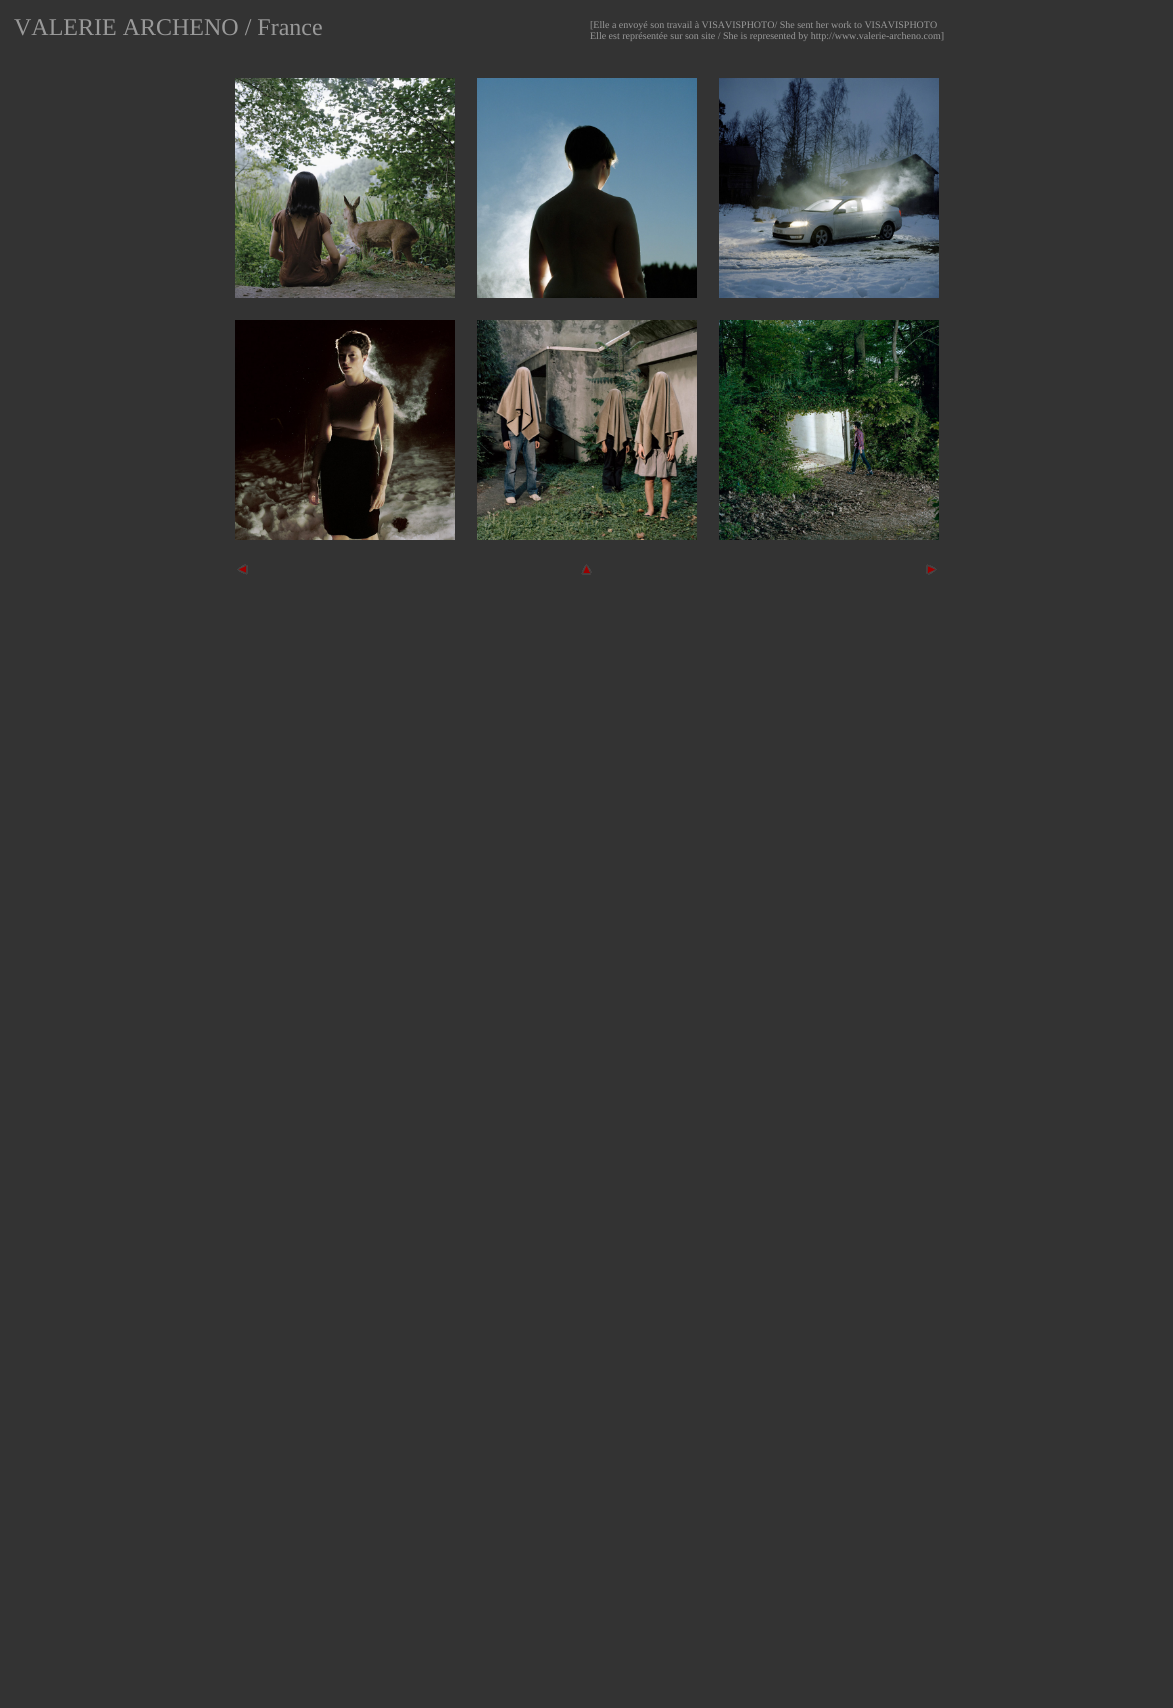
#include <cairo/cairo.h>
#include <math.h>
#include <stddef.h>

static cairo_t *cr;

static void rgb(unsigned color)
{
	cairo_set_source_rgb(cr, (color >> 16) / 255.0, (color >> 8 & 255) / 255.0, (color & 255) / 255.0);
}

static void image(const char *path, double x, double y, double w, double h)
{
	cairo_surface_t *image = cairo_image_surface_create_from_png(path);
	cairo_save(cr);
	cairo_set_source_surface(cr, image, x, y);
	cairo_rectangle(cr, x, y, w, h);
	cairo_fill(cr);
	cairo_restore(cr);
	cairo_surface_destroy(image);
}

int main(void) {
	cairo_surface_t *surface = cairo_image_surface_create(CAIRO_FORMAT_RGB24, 1173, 1708);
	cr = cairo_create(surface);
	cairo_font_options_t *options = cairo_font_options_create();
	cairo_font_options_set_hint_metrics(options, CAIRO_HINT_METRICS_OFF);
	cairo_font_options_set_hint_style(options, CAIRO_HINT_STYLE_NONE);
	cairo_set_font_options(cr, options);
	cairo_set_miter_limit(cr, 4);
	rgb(0x333333);
	cairo_paint(cr);
	image("img/1.png", 235, 78, 220, 220);
	image("img/2.png", 477, 78, 220, 220);
	image("img/3.png", 719, 78, 220, 220);
	image("img/4.png", 235, 320, 220, 220);
	image("img/5.png", 477, 320, 220, 220);
	image("img/6.png", 719, 320, 220, 220);
	image("img/7.png", 237, 564, 11, 11);
	image("img/8.png", 581, 564, 11, 11);
	image("img/9.png", 926, 564, 11, 11);
	cairo_select_font_face(cr, "Liberation Serif", CAIRO_FONT_SLANT_NORMAL, CAIRO_FONT_WEIGHT_NORMAL);
	cairo_set_font_size(cr, 24);
	rgb(0x999999);
	cairo_move_to(cr, 14, 35);
	cairo_show_text(cr, "VALERIE ARCHENO / France");
	cairo_set_font_size(cr, 10);
	cairo_move_to(cr, 590, 28);
	cairo_show_text(cr, "[Elle a envoyé son travail à VISAVISPHOTO/ She sent her work to VISAVISPHOTO");
	cairo_move_to(cr, 590, 39);
	cairo_show_text(cr, "Elle est représentée sur son site / She is represented by http://www.valerie-archeno.com]");
	cairo_surface_write_to_png(surface, "page.png");
	cairo_font_options_destroy(options);
	cairo_destroy(cr);
	cairo_surface_destroy(surface);
	return 0;
}
